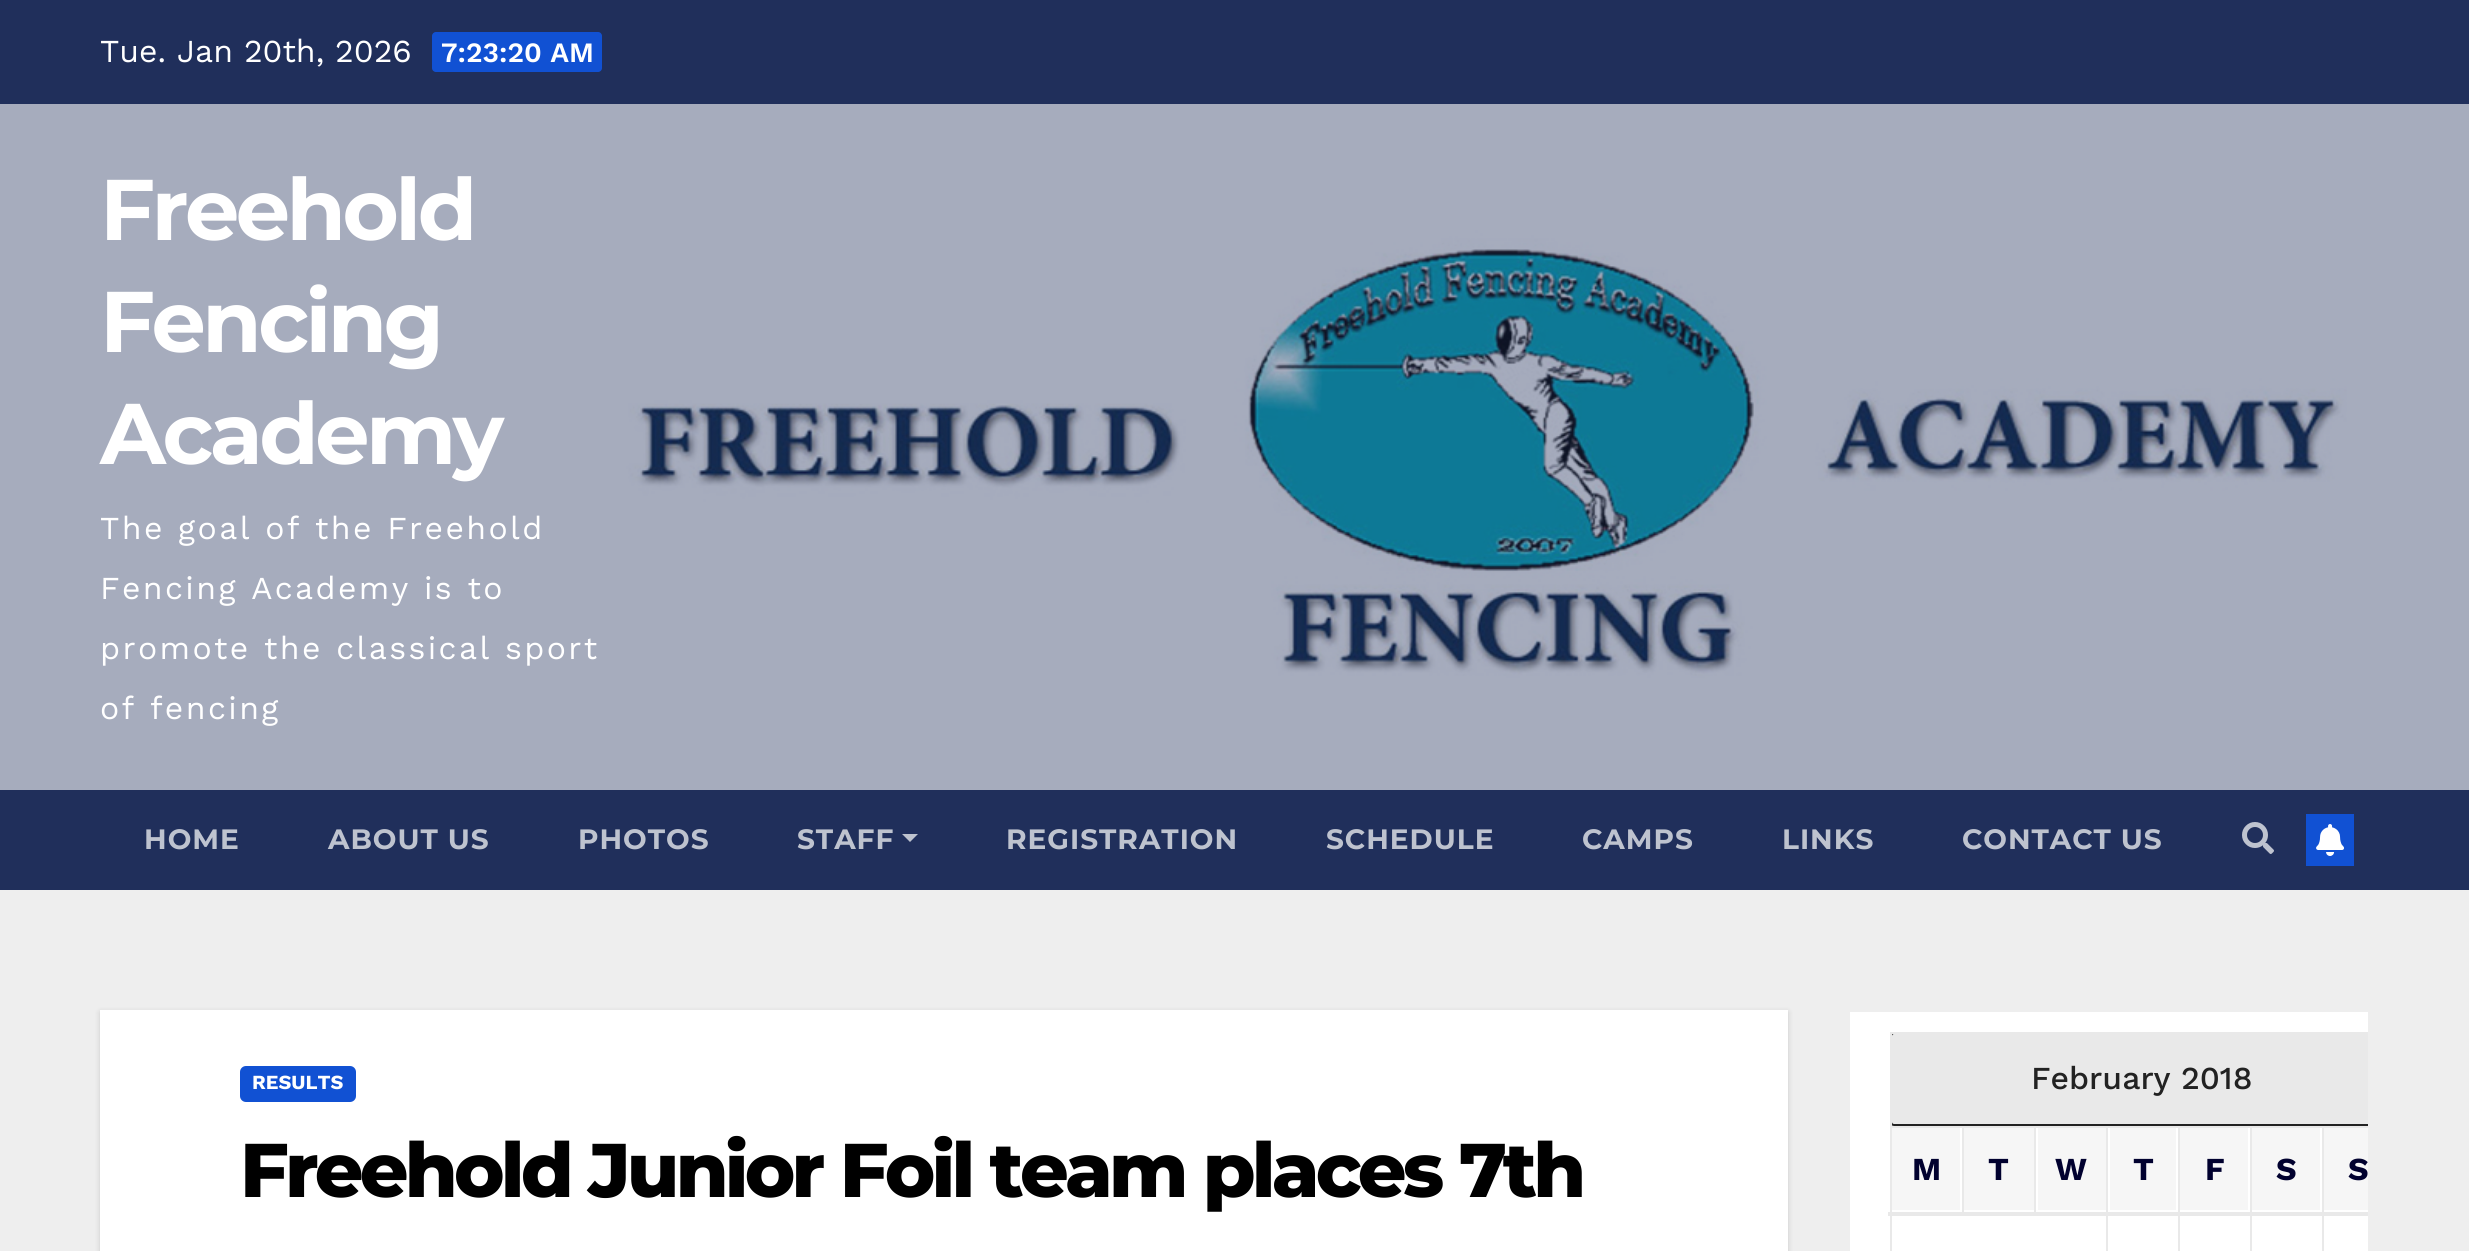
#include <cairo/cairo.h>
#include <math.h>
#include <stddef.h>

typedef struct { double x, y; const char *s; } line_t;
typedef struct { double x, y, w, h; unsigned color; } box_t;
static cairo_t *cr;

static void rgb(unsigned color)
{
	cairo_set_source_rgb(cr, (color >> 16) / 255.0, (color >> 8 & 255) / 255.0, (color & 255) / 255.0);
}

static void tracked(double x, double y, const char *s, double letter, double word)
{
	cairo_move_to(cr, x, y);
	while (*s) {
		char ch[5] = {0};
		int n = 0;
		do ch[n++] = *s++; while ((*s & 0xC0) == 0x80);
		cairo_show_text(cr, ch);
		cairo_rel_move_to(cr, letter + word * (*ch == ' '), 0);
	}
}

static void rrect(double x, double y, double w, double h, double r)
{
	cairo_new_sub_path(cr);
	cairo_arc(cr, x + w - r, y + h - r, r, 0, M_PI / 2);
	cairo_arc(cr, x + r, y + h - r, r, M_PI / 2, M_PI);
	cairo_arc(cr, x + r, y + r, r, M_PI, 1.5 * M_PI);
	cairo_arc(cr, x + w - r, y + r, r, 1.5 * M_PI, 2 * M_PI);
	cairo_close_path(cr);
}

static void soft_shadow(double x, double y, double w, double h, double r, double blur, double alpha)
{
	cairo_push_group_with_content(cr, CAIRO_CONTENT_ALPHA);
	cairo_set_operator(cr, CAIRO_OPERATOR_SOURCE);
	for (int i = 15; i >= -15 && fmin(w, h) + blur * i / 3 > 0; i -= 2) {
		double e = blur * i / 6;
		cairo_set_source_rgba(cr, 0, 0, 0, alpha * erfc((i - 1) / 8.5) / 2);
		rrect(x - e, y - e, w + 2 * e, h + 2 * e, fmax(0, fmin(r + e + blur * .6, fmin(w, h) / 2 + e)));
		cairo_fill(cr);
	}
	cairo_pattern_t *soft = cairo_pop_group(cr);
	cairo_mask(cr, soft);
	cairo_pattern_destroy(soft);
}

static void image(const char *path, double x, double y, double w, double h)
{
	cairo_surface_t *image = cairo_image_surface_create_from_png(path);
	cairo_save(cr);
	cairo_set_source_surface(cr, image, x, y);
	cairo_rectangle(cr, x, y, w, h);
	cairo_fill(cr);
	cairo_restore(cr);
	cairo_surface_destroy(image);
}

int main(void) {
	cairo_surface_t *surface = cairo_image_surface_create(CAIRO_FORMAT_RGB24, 2469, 1251);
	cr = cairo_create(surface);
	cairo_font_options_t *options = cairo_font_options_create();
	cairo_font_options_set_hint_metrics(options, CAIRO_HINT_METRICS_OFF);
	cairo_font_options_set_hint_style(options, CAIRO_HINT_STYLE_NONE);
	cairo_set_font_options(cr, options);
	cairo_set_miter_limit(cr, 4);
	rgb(0xeeeeee);
	cairo_paint(cr);
	rgb(0x202f5b);
	cairo_rectangle(cr, 0, 0, 2469, 104);
	cairo_fill(cr);
	rgb(0x1151d3);
	rrect(432, 32, 170, 40, 4);
	cairo_fill(cr);
	image("img/1.png", 0, 104, 2469, 686);
	rgb(0x202f5b);
	cairo_rectangle(cr, 0, 790, 2469, 100);
	cairo_fill(cr);
	rgb(0xbec3cf);
	cairo_new_path(cr);
	cairo_move_to(cr, 902, 834);
	cairo_line_to(cr, 918, 834);
	cairo_line_to(cr, 910, 842);
	cairo_close_path(cr);
	cairo_fill(cr);
	image("img/2.png", 2242, 822, 32, 32);
	rgb(0x1151d3);
	cairo_rectangle(cr, 2306, 814, 48, 52);
	cairo_fill(cr);
	image("img/3.png", 2316, 824, 28, 32);
	rgb(0x000000);
	soft_shadow(100, 1012, 1688, 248, 0, 3, 0.15);
	rgb(0xffffff);
	cairo_rectangle(cr, 100, 1010, 1688, 241);
	cairo_fill(cr);
	rgb(0x1151d3);
	rrect(240, 1066, 116, 36, 6);
	cairo_fill(cr);
	rgb(0xffffff);
	cairo_rectangle(cr, 1850, 1012, 518, 239);
	cairo_fill(cr);
	rgb(0xe9e9e9);
	cairo_new_path(cr);
	cairo_move_to(cr, 1894, 1032);
	cairo_line_to(cr, 2368, 1032);
	cairo_line_to(cr, 2368, 1126);
	cairo_line_to(cr, 1894, 1126);
	cairo_curve_to(cr, 1892, 1126, 1890, 1124, 1890, 1122);
	cairo_line_to(cr, 1890, 1036);
	cairo_curve_to(cr, 1890, 1034, 1892, 1032, 1894, 1032);
	cairo_close_path(cr);
	cairo_fill(cr);
	cairo_save(cr);
	cairo_rectangle(cr, 1850, 1012, 518, 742);
	cairo_clip(cr);
	rrect(1891, 1033, 502, 92, 3);
	rgb(0x222222);
	cairo_stroke(cr);
	cairo_restore(cr);
	{
		static const box_t items[] = {
			{1890, 1032, 478, 2, 0xe9e9e9},
			{1890, 1032, 2, 219, 0xe9e9e9},
			{1892, 1128, 68, 82, 0xf6f6f6},
			{2322, 1126, 46, 2, 0xe9e9e9},
			{2322, 1214, 2, 37, 0xe9e9e9},
			{2322, 1126, 2, 90, 0xe9e9e9},
			{2250, 1126, 74, 2, 0xe9e9e9},
			{2250, 1214, 2, 37, 0xe9e9e9},
			{2250, 1126, 2, 90, 0xe9e9e9},
			{2178, 1126, 74, 2, 0xe9e9e9},
			{2178, 1214, 2, 37, 0xe9e9e9},
			{2178, 1126, 2, 90, 0xe9e9e9},
			{2106, 1126, 74, 2, 0xe9e9e9},
			{2106, 1214, 2, 37, 0xe9e9e9},
			{2106, 1126, 2, 90, 0xe9e9e9},
			{2034, 1126, 74, 2, 0xe9e9e9},
			{2034, 1126, 2, 90, 0xe9e9e9},
			{1962, 1126, 74, 2, 0xe9e9e9},
			{1962, 1126, 2, 90, 0xe9e9e9},
			{1890, 1126, 74, 2, 0xe9e9e9},
			{1964, 1128, 70, 82, 0xf6f6f6},
			{2038, 1128, 68, 82, 0xf6f6f6},
			{2110, 1128, 66, 82, 0xf6f6f6},
			{2180, 1128, 68, 82, 0xf6f6f6},
			{2252, 1128, 68, 82, 0xf6f6f6},
			{2324, 1128, 44, 82, 0xf6f6f6},
			{1888, 1212, 480, 4, 0xe9e9e9},
		};
		for (size_t i = 0; i < sizeof items / sizeof *items; i++) {
			rgb(items[i].color);
			cairo_rectangle(cr, items[i].x, items[i].y, items[i].w, items[i].h);
			cairo_fill(cr);
		}
	}
	cairo_select_font_face(cr, "Work Sans", CAIRO_FONT_SLANT_NORMAL, CAIRO_FONT_WEIGHT_NORMAL);
	cairo_set_font_size(cr, 32);
	rgb(0xffffff);
	cairo_move_to(cr, 100, 62);
	cairo_show_text(cr, "Tue. Jan 20th, 2026");
	cairo_select_font_face(cr, "Work Sans SemiBold", CAIRO_FONT_SLANT_NORMAL, CAIRO_FONT_WEIGHT_NORMAL);
	cairo_set_font_size(cr, 28);
	cairo_move_to(cr, 441, 62);
	cairo_show_text(cr, "7:23:20 AM");
	cairo_select_font_face(cr, "Montserrat", CAIRO_FONT_SLANT_NORMAL, CAIRO_FONT_WEIGHT_BOLD);
	cairo_set_font_size(cr, 86);
	{
		static const line_t items[] = {
			{100, 240, "Freehold"},
			{100, 352, "Fencing"},
			{100, 464, "Academy"},
		};
		for (size_t i = 0; i < sizeof items / sizeof *items; i++) {
			tracked(items[i].x, items[i].y, items[i].s, -3.5, 0);
		}
	}
	cairo_select_font_face(cr, "Work Sans", CAIRO_FONT_SLANT_NORMAL, CAIRO_FONT_WEIGHT_NORMAL);
	cairo_set_font_size(cr, 32);
	{
		static const line_t items[] = {
			{100, 539, "The goal of the Freehold"},
			{100, 599, "Fencing Academy is to"},
			{100, 659, "promote the classical sport"},
			{100, 719, "of fencing"},
		};
		for (size_t i = 0; i < sizeof items / sizeof *items; i++) {
			tracked(items[i].x, items[i].y, items[i].s, 2.4, 0);
		}
	}
	cairo_select_font_face(cr, "Montserrat", CAIRO_FONT_SLANT_NORMAL, CAIRO_FONT_WEIGHT_BOLD);
	cairo_set_font_size(cr, 28);
	rgb(0xbec3cf);
	{
		static const line_t items[] = {
			{144, 849, "HOME"},
			{328, 849, "ABOUT US"},
			{578, 849, "PHOTOS"},
			{797, 849, "STAFF"},
			{1006, 849, "REGISTRATION"},
			{1326, 849, "SCHEDULE"},
			{1582, 849, "CAMPS"},
			{1782, 849, "LINKS"},
			{1962, 849, "CONTACT US"},
		};
		for (size_t i = 0; i < sizeof items / sizeof *items; i++) {
			tracked(items[i].x, items[i].y, items[i].s, 1, 0);
		}
	}
	cairo_select_font_face(cr, "Work Sans", CAIRO_FONT_SLANT_NORMAL, CAIRO_FONT_WEIGHT_BOLD);
	cairo_set_font_size(cr, 20);
	rgb(0xffffff);
	cairo_move_to(cr, 252, 1089);
	cairo_show_text(cr, "RESULTS");
	cairo_select_font_face(cr, "Montserrat ExtraBold", CAIRO_FONT_SLANT_NORMAL, CAIRO_FONT_WEIGHT_NORMAL);
	cairo_set_font_size(cr, 76);
	rgb(0x000000);
	tracked(240, 1197, "Freehold Junior Foil team places 7th", -3.8, 0);
	cairo_select_font_face(cr, "Work Sans Medium", CAIRO_FONT_SLANT_NORMAL, CAIRO_FONT_WEIGHT_NORMAL);
	cairo_set_font_size(cr, 32);
	rgb(0x222222);
	cairo_move_to(cr, 2031, 1089);
	cairo_show_text(cr, "February 2018");
	cairo_select_font_face(cr, "Work Sans", CAIRO_FONT_SLANT_NORMAL, CAIRO_FONT_WEIGHT_BOLD);
	rgb(0x01012f);
	{
		static const line_t items[] = {
			{1912, 1180, "M"},
			{1988, 1180, "T"},
			{2055, 1180, "W"},
			{2133, 1180, "T"},
			{2205, 1180, "F"},
			{2276, 1180, "S"},
			{2348, 1180, "S"},
		};
		for (size_t i = 0; i < sizeof items / sizeof *items; i++) {
			cairo_move_to(cr, items[i].x, items[i].y);
			cairo_show_text(cr, items[i].s);
		}
	}
	cairo_surface_write_to_png(surface, "page.png");
	cairo_font_options_destroy(options);
	cairo_destroy(cr);
	cairo_surface_destroy(surface);
	return 0;
}
